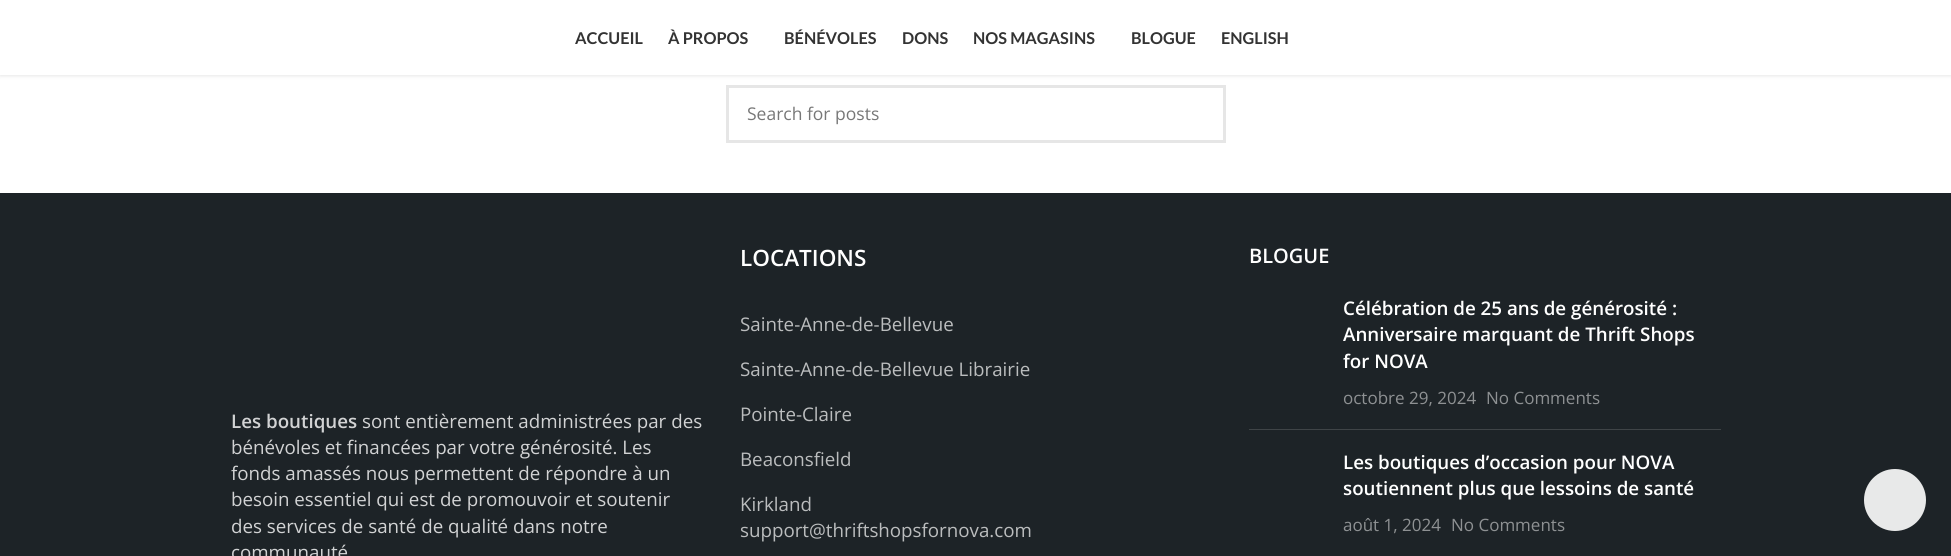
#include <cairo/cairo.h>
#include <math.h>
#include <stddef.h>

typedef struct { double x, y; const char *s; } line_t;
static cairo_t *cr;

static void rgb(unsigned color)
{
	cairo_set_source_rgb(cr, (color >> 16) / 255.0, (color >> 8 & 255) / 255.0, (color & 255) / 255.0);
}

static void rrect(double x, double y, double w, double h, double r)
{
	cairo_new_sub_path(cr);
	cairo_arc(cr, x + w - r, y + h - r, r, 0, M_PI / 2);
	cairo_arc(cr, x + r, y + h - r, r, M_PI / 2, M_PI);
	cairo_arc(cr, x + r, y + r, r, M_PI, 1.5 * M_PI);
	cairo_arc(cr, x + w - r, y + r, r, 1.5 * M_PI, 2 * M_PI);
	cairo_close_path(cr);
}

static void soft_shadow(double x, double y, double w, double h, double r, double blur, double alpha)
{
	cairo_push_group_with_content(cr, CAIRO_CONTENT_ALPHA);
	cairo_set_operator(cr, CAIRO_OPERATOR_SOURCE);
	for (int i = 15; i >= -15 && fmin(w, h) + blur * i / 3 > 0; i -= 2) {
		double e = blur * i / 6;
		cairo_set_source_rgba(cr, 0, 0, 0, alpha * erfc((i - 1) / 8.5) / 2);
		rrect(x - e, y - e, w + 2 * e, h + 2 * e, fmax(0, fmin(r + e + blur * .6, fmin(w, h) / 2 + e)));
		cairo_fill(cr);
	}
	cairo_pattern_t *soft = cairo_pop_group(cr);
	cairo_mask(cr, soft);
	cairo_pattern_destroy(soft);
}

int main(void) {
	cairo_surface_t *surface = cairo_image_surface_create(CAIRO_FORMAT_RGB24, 1951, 556);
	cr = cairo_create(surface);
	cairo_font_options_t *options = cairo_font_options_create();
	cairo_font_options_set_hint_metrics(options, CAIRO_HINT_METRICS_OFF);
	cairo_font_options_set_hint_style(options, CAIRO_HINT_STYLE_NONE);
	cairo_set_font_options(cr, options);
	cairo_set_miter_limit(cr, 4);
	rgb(0xffffff);
	cairo_paint(cr);
	rgb(0x000000);
	soft_shadow(0, 1, 1951, 75, 0, 2, 0.1);
	rgb(0xffffff);
	cairo_rectangle(cr, 0, 0, 1951, 75);
	cairo_fill(cr);
	cairo_rectangle(cr, 727.5, 86.5, 497, 55);
	rgb(0xe6e6e6);
	cairo_set_line_width(cr, 3);
	cairo_stroke(cr);
	rgb(0x1d2327);
	cairo_rectangle(cr, 0, 193, 1951, 363);
	cairo_fill(cr);
	rgb(0x3f4447);
	cairo_rectangle(cr, 1249, 429, 472, 1);
	cairo_fill(cr);
	rgb(0xe8e9e9);
	cairo_arc(cr, 1895, 500, 31, 0, 2 * M_PI);
	cairo_fill(cr);
	cairo_select_font_face(cr, "Lato", CAIRO_FONT_SLANT_NORMAL, CAIRO_FONT_WEIGHT_BOLD);
	cairo_set_font_size(cr, 16.25);
	rgb(0x333333);
	{
		static const line_t items[] = {
			{575, 44, "ACCUEIL"},
			{668, 44, "À PROPOS"},
			{784, 44, "BÉNÉVOLES"},
			{902, 44, "DONS"},
			{973, 44, "NOS MAGASINS"},
			{1131, 44, "BLOGUE"},
			{1221, 44, "ENGLISH"},
		};
		for (size_t i = 0; i < sizeof items / sizeof *items; i++) {
			cairo_move_to(cr, items[i].x, items[i].y);
			cairo_show_text(cr, items[i].s);
		}
	}
	cairo_select_font_face(cr, "Open Sans", CAIRO_FONT_SLANT_NORMAL, CAIRO_FONT_WEIGHT_NORMAL);
	cairo_set_font_size(cr, 17.5);
	rgb(0x777777);
	cairo_move_to(cr, 747, 120);
	cairo_show_text(cr, "Search for posts");
	cairo_select_font_face(cr, "Open Sans SemiBold", CAIRO_FONT_SLANT_NORMAL, CAIRO_FONT_WEIGHT_NORMAL);
	cairo_set_font_size(cr, 18.75);
	rgb(0xd2d3d4);
	cairo_move_to(cr, 231, 428);
	cairo_show_text(cr, "Les boutiques");
	cairo_select_font_face(cr, "Open Sans", CAIRO_FONT_SLANT_NORMAL, CAIRO_FONT_WEIGHT_NORMAL);
	{
		static const line_t items[] = {
			{362, 428, "sont entièrement administrées par des"},
			{231, 454, "bénévoles et financées par votre générosité. Les"},
			{231, 480, "fonds amassés nous permettent de répondre à un"},
			{231, 506, "besoin essentiel qui est de promouvoir et soutenir"},
			{231, 533, "des services de santé de qualité dans notre"},
			{231, 559, "communauté"},
		};
		for (size_t i = 0; i < sizeof items / sizeof *items; i++) {
			cairo_move_to(cr, items[i].x, items[i].y);
			cairo_show_text(cr, items[i].s);
		}
	}
	cairo_select_font_face(cr, "Open Sans SemiBold", CAIRO_FONT_SLANT_NORMAL, CAIRO_FONT_WEIGHT_NORMAL);
	cairo_set_font_size(cr, 22.5);
	rgb(0xffffff);
	cairo_move_to(cr, 740, 266);
	cairo_show_text(cr, "LOCATIONS");
	cairo_select_font_face(cr, "Open Sans", CAIRO_FONT_SLANT_NORMAL, CAIRO_FONT_WEIGHT_NORMAL);
	cairo_set_font_size(cr, 18.75);
	rgb(0xbbbdbe);
	{
		static const line_t items[] = {
			{740, 331, "Sainte-Anne-de-Bellevue"},
			{740, 376, "Sainte-Anne-de-Bellevue Librairie"},
			{740, 421, "Pointe-Claire"},
			{740, 466, "Beaconsfield"},
			{740, 511, "Kirkland"},
			{740, 537, "support@thriftshopsfornova.com"},
		};
		for (size_t i = 0; i < sizeof items / sizeof *items; i++) {
			cairo_move_to(cr, items[i].x, items[i].y);
			cairo_show_text(cr, items[i].s);
		}
	}
	cairo_select_font_face(cr, "Open Sans SemiBold", CAIRO_FONT_SLANT_NORMAL, CAIRO_FONT_WEIGHT_NORMAL);
	cairo_set_font_size(cr, 20);
	rgb(0xffffff);
	cairo_move_to(cr, 1249, 263);
	cairo_show_text(cr, "BLOGUE");
	cairo_set_font_size(cr, 18.75);
	{
		static const line_t items[] = {
			{1343, 315, "Célébration de 25 ans de générosité :"},
			{1343, 341, "Anniversaire marquant de Thrift Shops"},
			{1343, 368, "for NOVA"},
		};
		for (size_t i = 0; i < sizeof items / sizeof *items; i++) {
			cairo_move_to(cr, items[i].x, items[i].y);
			cairo_show_text(cr, items[i].s);
		}
	}
	cairo_select_font_face(cr, "Open Sans", CAIRO_FONT_SLANT_NORMAL, CAIRO_FONT_WEIGHT_NORMAL);
	cairo_set_font_size(cr, 17);
	rgb(0x8e9193);
	cairo_move_to(cr, 1343, 404);
	cairo_show_text(cr, "octobre 29, 2024");
	cairo_move_to(cr, 1486, 404);
	cairo_show_text(cr, "No Comments");
	cairo_select_font_face(cr, "Open Sans SemiBold", CAIRO_FONT_SLANT_NORMAL, CAIRO_FONT_WEIGHT_NORMAL);
	cairo_set_font_size(cr, 18.75);
	rgb(0xffffff);
	cairo_move_to(cr, 1343, 469);
	cairo_show_text(cr, "Les boutiques d’occasion pour NOVA");
	cairo_move_to(cr, 1343, 495);
	cairo_show_text(cr, "soutiennent plus que lessoins de santé");
	cairo_select_font_face(cr, "Open Sans", CAIRO_FONT_SLANT_NORMAL, CAIRO_FONT_WEIGHT_NORMAL);
	cairo_set_font_size(cr, 17);
	rgb(0x8e9193);
	cairo_move_to(cr, 1343, 531);
	cairo_show_text(cr, "août 1, 2024");
	cairo_move_to(cr, 1451, 531);
	cairo_show_text(cr, "No Comments");
	cairo_surface_write_to_png(surface, "page.png");
	cairo_font_options_destroy(options);
	cairo_destroy(cr);
	cairo_surface_destroy(surface);
	return 0;
}
